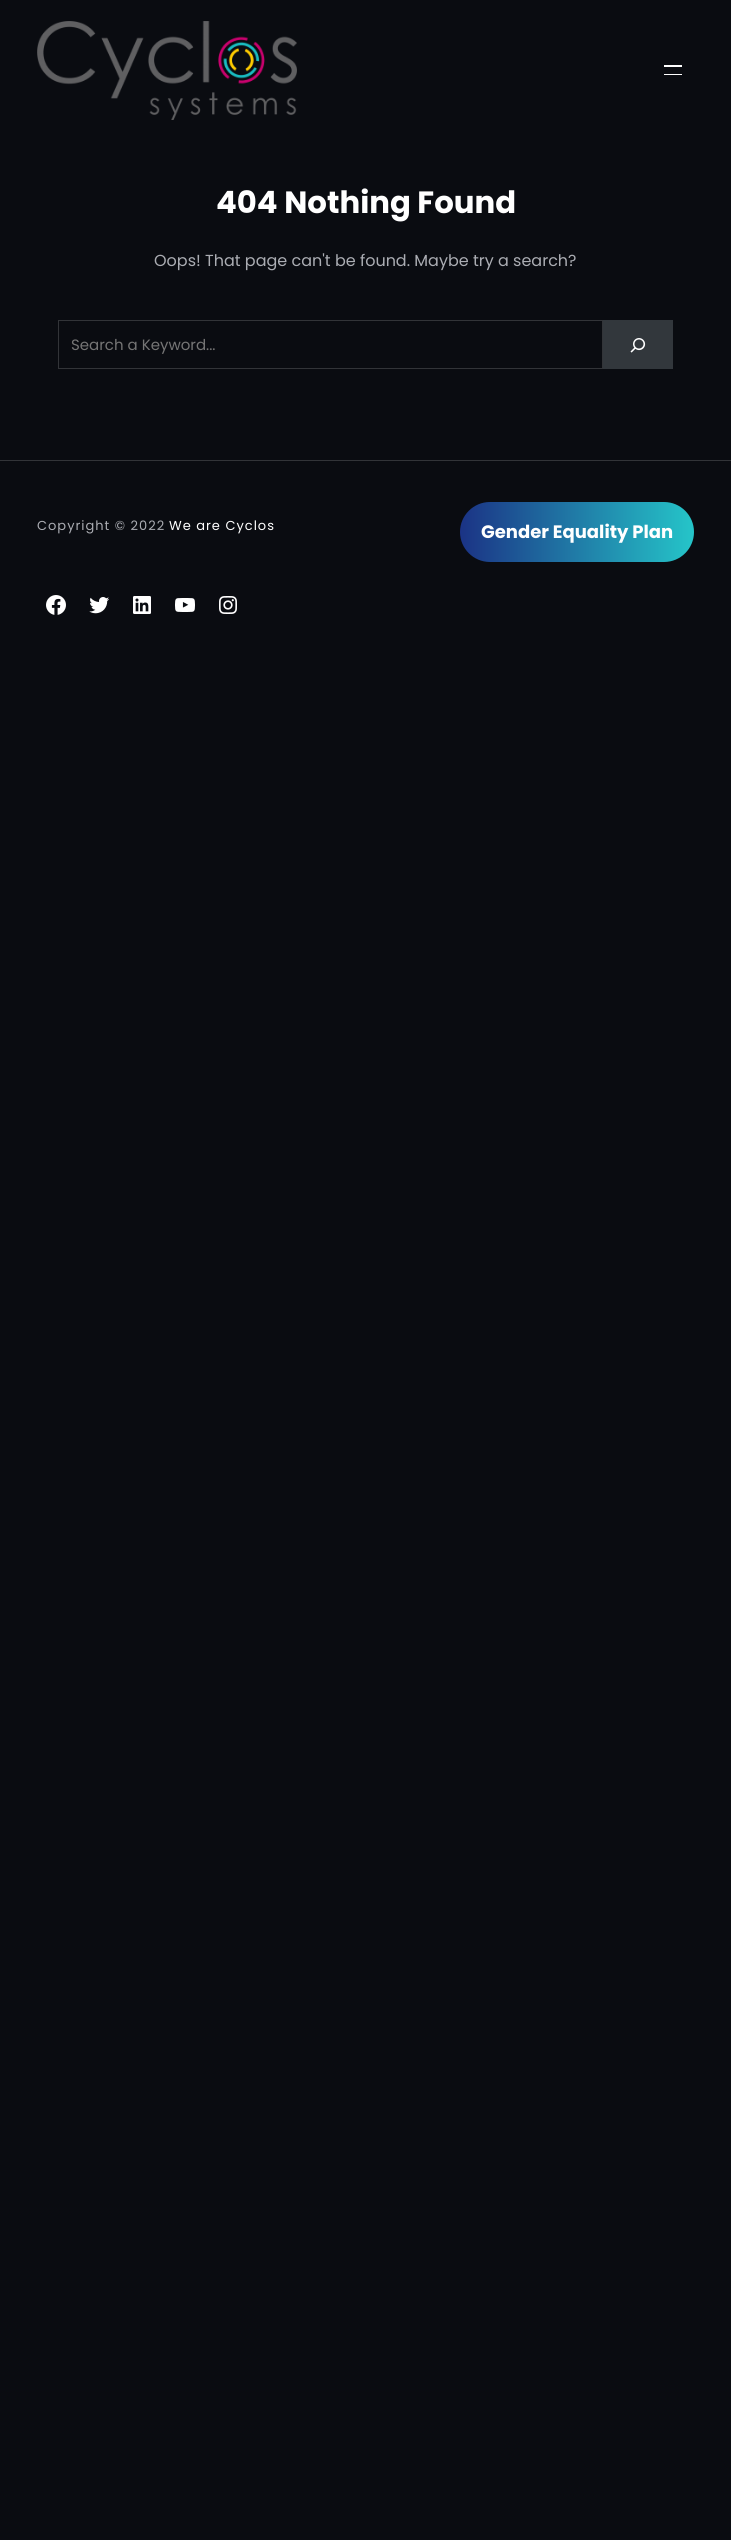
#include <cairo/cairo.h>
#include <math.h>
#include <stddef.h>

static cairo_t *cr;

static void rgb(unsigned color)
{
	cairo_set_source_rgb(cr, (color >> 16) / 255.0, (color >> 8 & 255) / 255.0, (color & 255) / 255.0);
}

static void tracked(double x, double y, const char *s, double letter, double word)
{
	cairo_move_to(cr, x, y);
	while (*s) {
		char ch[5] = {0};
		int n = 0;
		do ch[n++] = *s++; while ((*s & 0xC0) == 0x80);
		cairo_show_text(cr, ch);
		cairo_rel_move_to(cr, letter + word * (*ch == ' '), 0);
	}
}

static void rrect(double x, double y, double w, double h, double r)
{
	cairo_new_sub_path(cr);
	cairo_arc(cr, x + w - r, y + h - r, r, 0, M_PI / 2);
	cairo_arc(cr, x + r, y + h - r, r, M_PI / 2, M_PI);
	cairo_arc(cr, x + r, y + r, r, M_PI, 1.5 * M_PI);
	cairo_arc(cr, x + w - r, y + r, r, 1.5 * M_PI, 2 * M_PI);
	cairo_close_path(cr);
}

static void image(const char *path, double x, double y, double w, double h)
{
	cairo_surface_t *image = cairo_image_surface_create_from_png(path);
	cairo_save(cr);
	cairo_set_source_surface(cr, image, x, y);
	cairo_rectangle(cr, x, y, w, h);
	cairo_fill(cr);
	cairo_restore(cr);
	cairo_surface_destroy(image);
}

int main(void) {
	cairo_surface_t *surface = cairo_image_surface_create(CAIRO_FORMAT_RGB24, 731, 2540);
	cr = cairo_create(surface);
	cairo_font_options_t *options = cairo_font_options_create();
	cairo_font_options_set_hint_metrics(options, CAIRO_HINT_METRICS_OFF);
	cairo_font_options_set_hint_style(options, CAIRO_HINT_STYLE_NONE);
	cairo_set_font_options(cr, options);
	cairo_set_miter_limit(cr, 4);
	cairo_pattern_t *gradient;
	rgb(0x0a0c11);
	cairo_paint(cr);
	image("img/1.png", 37, 21, 260, 99);
	rgb(0xffffff);
	cairo_rectangle(cr, 664, 65, 18, 2);
	cairo_fill(cr);
	cairo_rectangle(cr, 664, 74, 18, 1);
	cairo_fill(cr);
	cairo_rectangle(cr, 58.5, 320.5, 544, 48);
	rgb(0x323438);
	cairo_set_line_width(cr, 1);
	cairo_stroke(cr);
	rgb(0x32373c);
	cairo_rectangle(cr, 603, 320, 70, 49);
	cairo_fill(cr);
	image("img/2.png", 630, 338, 16, 15);
	rgb(0x323438);
	cairo_rectangle(cr, 0, 460, 731, 1);
	cairo_fill(cr);
	gradient = cairo_pattern_create_linear(460, 532, 694, 532);
	cairo_pattern_add_color_stop_rgba(gradient, 0, 0.106, 0.2, 0.522, 1);
	cairo_pattern_add_color_stop_rgba(gradient, 1, 0.145, 0.773, 0.788, 1);
	cairo_set_source(cr, gradient);
	cairo_pattern_destroy(gradient);
	rrect(460, 502, 234, 60, 30);
	cairo_fill(cr);
	image("img/3.png", 46, 595, 20, 20);
	image("img/4.png", 89, 597, 20, 17);
	image("img/5.png", 133, 596, 18, 18);
	image("img/6.png", 175, 598, 20, 14);
	image("img/7.png", 219, 596, 18, 18);
	cairo_select_font_face(cr, "Poppins", CAIRO_FONT_SLANT_NORMAL, CAIRO_FONT_WEIGHT_BOLD);
	cairo_set_font_size(cr, 30.75);
	rgb(0xffffff);
	cairo_move_to(cr, 216, 213);
	cairo_show_text(cr, "404 Nothing Found");
	cairo_select_font_face(cr, "Poppins", CAIRO_FONT_SLANT_NORMAL, CAIRO_FONT_WEIGHT_NORMAL);
	cairo_set_font_size(cr, 16);
	rgb(0xabadb3);
	cairo_move_to(cr, 154, 266);
	cairo_show_text(cr, "Oops! That page can't be found. Maybe try a search?");
	cairo_set_font_size(cr, 15);
	rgb(0x757575);
	cairo_move_to(cr, 71, 350);
	cairo_show_text(cr, "Search a Keyword...");
	cairo_set_font_size(cr, 13);
	rgb(0xabadb3);
	tracked(37, 530, "Copyright © 2022", 1, 0);
	rgb(0xffffff);
	tracked(169, 530, "We are Cyclos", 1, 0);
	cairo_select_font_face(cr, "Poppins", CAIRO_FONT_SLANT_NORMAL, CAIRO_FONT_WEIGHT_BOLD);
	cairo_set_font_size(cr, 18);
	cairo_move_to(cr, 481, 538);
	cairo_show_text(cr, "Gender Equality Plan");
	cairo_surface_write_to_png(surface, "page.png");
	cairo_font_options_destroy(options);
	cairo_destroy(cr);
	cairo_surface_destroy(surface);
	return 0;
}
